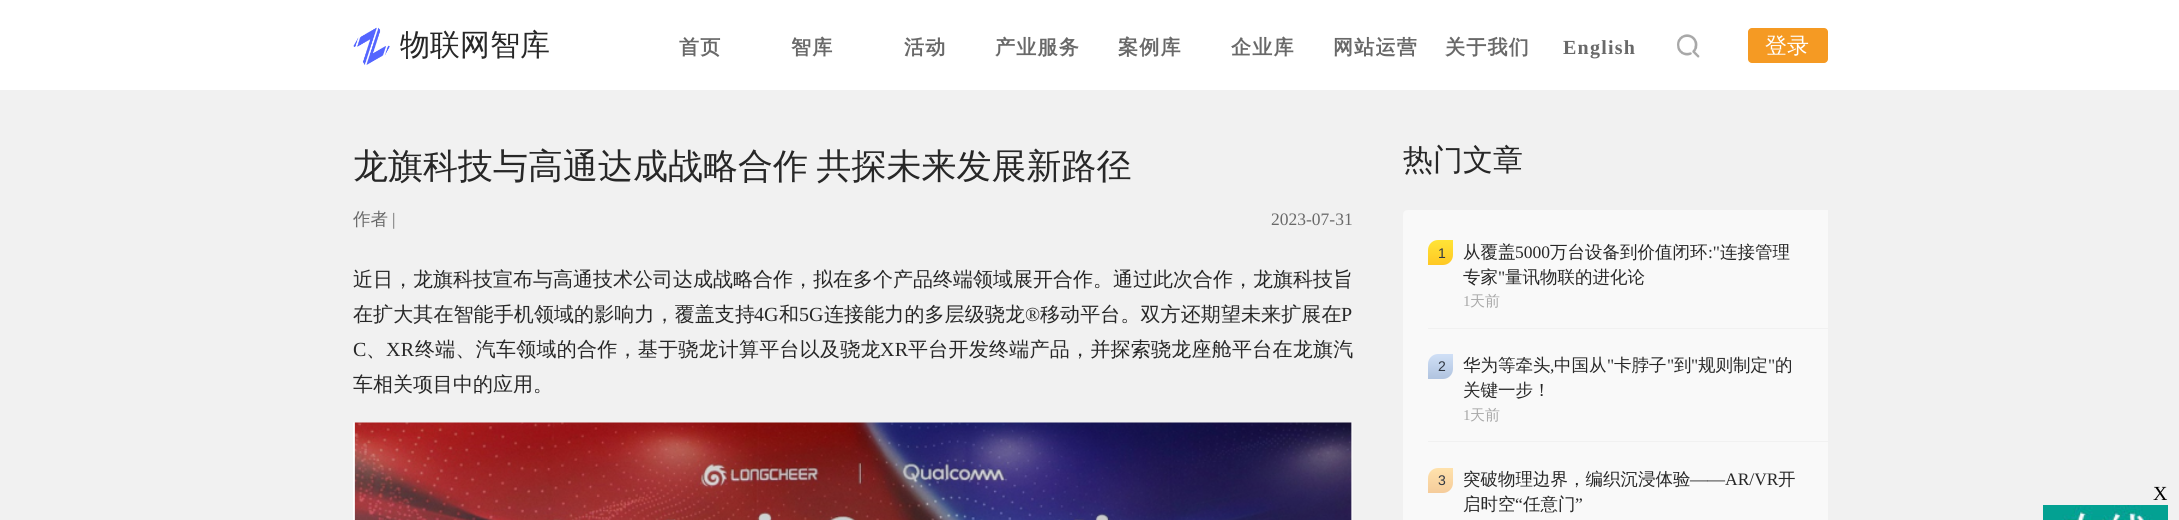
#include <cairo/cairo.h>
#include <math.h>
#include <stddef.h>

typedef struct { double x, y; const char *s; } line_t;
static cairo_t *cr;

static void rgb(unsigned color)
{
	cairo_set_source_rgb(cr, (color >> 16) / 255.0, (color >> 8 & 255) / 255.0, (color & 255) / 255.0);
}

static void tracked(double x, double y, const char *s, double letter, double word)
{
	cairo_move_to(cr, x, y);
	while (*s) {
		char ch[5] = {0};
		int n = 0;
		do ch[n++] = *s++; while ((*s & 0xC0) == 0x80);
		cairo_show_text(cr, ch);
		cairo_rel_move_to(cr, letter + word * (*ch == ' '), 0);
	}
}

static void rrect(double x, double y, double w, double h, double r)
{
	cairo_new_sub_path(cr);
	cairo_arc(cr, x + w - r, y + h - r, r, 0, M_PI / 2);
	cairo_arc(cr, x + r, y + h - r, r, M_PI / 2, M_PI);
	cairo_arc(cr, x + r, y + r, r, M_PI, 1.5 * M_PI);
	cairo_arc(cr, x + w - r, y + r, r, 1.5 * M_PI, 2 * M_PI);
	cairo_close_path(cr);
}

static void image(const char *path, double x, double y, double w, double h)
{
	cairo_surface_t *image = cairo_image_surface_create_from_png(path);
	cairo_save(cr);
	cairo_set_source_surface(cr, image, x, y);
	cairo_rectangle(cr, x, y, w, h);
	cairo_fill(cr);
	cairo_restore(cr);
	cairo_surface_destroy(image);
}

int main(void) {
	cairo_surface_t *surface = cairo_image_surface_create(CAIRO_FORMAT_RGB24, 2179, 520);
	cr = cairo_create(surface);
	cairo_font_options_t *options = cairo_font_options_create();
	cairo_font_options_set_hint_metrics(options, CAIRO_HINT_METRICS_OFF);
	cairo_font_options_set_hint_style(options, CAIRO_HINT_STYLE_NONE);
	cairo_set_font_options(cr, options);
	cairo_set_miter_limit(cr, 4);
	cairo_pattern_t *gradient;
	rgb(0xffffff);
	cairo_paint(cr);
	image("img/1.png", 353, 27, 37, 38);
	image("img/2.png", 1677, 34, 23, 24);
	rgb(0xf59a23);
	rrect(1748, 28, 80, 35, 4);
	cairo_fill(cr);
	rgb(0xf1f1f1);
	cairo_rectangle(cr, 0, 90, 2179, 430);
	cairo_fill(cr);
	image("img/3.png", 353, 422, 1000, 98);
	rgb(0xf9f9f9);
	cairo_new_path(cr);
	cairo_move_to(cr, 1408, 210);
	cairo_line_to(cr, 1828, 210);
	cairo_line_to(cr, 1828, 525);
	cairo_line_to(cr, 1408, 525);
	cairo_curve_to(cr, 1405, 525, 1403, 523, 1403, 520);
	cairo_line_to(cr, 1403, 215);
	cairo_curve_to(cr, 1403, 212, 1405, 210, 1408, 210);
	cairo_close_path(cr);
	cairo_fill(cr);
	rgb(0xf1f1f1);
	cairo_rectangle(cr, 1428, 328, 400, 1);
	cairo_fill(cr);
	gradient = cairo_pattern_create_linear(1440, 240, 1440, 265);
	cairo_pattern_add_color_stop_rgba(gradient, 0, 1, 0.894, 0.216, 1);
	cairo_pattern_add_color_stop_rgba(gradient, 1, 1, 0.784, 0.141, 1);
	cairo_set_source(cr, gradient);
	cairo_pattern_destroy(gradient);
	cairo_new_path(cr);
	cairo_move_to(cr, 1438, 240);
	cairo_line_to(cr, 1453, 240);
	cairo_line_to(cr, 1453, 255);
	cairo_curve_to(cr, 1453, 260.5, 1448.5, 265, 1443, 265);
	cairo_line_to(cr, 1428, 265);
	cairo_line_to(cr, 1428, 250);
	cairo_curve_to(cr, 1428, 244.5, 1432.5, 240, 1438, 240);
	cairo_close_path(cr);
	cairo_fill(cr);
	rgb(0xf1f1f1);
	cairo_rectangle(cr, 1428, 441, 400, 1);
	cairo_fill(cr);
	gradient = cairo_pattern_create_linear(1440, 354, 1440, 379);
	cairo_pattern_add_color_stop_rgba(gradient, 0, 0.816, 0.878, 0.965, 1);
	cairo_pattern_add_color_stop_rgba(gradient, 1, 0.69, 0.765, 0.875, 1);
	cairo_set_source(cr, gradient);
	cairo_pattern_destroy(gradient);
	cairo_new_path(cr);
	cairo_move_to(cr, 1438, 354);
	cairo_line_to(cr, 1453, 354);
	cairo_line_to(cr, 1453, 369);
	cairo_curve_to(cr, 1453, 374.5, 1448.5, 379, 1443, 379);
	cairo_line_to(cr, 1428, 379);
	cairo_line_to(cr, 1428, 364);
	cairo_curve_to(cr, 1428, 358.5, 1432.5, 354, 1438, 354);
	cairo_close_path(cr);
	cairo_fill(cr);
	gradient = cairo_pattern_create_linear(1440, 468, 1440, 493);
	cairo_pattern_add_color_stop_rgba(gradient, 0, 1, 0.886, 0.675, 1);
	cairo_pattern_add_color_stop_rgba(gradient, 1, 0.961, 0.8, 0.608, 1);
	cairo_set_source(cr, gradient);
	cairo_pattern_destroy(gradient);
	cairo_new_path(cr);
	cairo_move_to(cr, 1438, 468);
	cairo_line_to(cr, 1453, 468);
	cairo_line_to(cr, 1453, 483);
	cairo_curve_to(cr, 1453, 488.5, 1448.5, 493, 1443, 493);
	cairo_line_to(cr, 1428, 493);
	cairo_line_to(cr, 1428, 478);
	cairo_curve_to(cr, 1428, 472.5, 1432.5, 468, 1438, 468);
	cairo_close_path(cr);
	cairo_fill(cr);
	image("img/4.png", 2043, 505, 125, 15);
	cairo_select_font_face(cr, "WenQuanYi Zen Hei Medium", CAIRO_FONT_SLANT_NORMAL, CAIRO_FONT_WEIGHT_NORMAL);
	cairo_set_font_size(cr, 30);
	rgb(0x272727);
	cairo_move_to(cr, 400, 55);
	cairo_show_text(cr, "物联网智库");
	cairo_select_font_face(cr, "WenQuanYi Zen Hei", CAIRO_FONT_SLANT_NORMAL, CAIRO_FONT_WEIGHT_BOLD);
	cairo_set_font_size(cr, 20);
	rgb(0x696969);
	{
		static const line_t items[] = {
			{679, 54, "首页"},
			{791, 54, "智库"},
			{904, 54, "活动"},
			{995, 54, "产业服务"},
			{1118, 54, "案例库"},
			{1231, 54, "企业库"},
			{1333, 54, "网站运营"},
			{1445, 54, "关于我们"},
		};
		for (size_t i = 0; i < sizeof items / sizeof *items; i++) {
			tracked(items[i].x, items[i].y, items[i].s, 1.25, 0);
		}
	}
	cairo_select_font_face(cr, "Liberation Serif", CAIRO_FONT_SLANT_NORMAL, CAIRO_FONT_WEIGHT_BOLD);
	tracked(1563, 54, "English", 1.25, 0);
	cairo_select_font_face(cr, "WenQuanYi Zen Hei Medium", CAIRO_FONT_SLANT_NORMAL, CAIRO_FONT_WEIGHT_NORMAL);
	cairo_set_font_size(cr, 22);
	rgb(0xffffff);
	cairo_move_to(cr, 1765, 53);
	cairo_show_text(cr, "登录");
	cairo_set_font_size(cr, 35);
	rgb(0x272727);
	tracked(353, 178, "龙旗科技与高通达成战略合作 共探未来发展新路径", 0, -2);
	cairo_set_font_size(cr, 17.5);
	rgb(0x696969);
	cairo_move_to(cr, 353, 225);
	cairo_show_text(cr, "作者");
	cairo_select_font_face(cr, "Liberation Serif", CAIRO_FONT_SLANT_NORMAL, CAIRO_FONT_WEIGHT_NORMAL);
	cairo_move_to(cr, 392, 225);
	cairo_show_text(cr, "|");
	cairo_move_to(cr, 1271, 225);
	cairo_show_text(cr, "2023-07-31");
	cairo_select_font_face(cr, "WenQuanYi Zen Hei Medium", CAIRO_FONT_SLANT_NORMAL, CAIRO_FONT_WEIGHT_NORMAL);
	cairo_set_font_size(cr, 20);
	rgb(0x272727);
	cairo_move_to(cr, 353, 286);
	cairo_show_text(cr, "近日，龙旗科技宣布与高通技术公司达成战略合作，拟在多个产品终端领域展开合作。通过此次合作，龙旗科技旨");
	tracked(353, 321, "在扩大其在智能手机领域的影响力，覆盖支持", 0.1, 0);
	cairo_select_font_face(cr, "Liberation Serif", CAIRO_FONT_SLANT_NORMAL, CAIRO_FONT_WEIGHT_NORMAL);
	tracked(754, 321, "4G", 0.1, 0);
	cairo_select_font_face(cr, "WenQuanYi Zen Hei Medium", CAIRO_FONT_SLANT_NORMAL, CAIRO_FONT_WEIGHT_NORMAL);
	tracked(779, 321, "和", 0.1, 0);
	cairo_select_font_face(cr, "Liberation Serif", CAIRO_FONT_SLANT_NORMAL, CAIRO_FONT_WEIGHT_NORMAL);
	tracked(799, 321, "5G", 0.1, 0);
	cairo_select_font_face(cr, "WenQuanYi Zen Hei Medium", CAIRO_FONT_SLANT_NORMAL, CAIRO_FONT_WEIGHT_NORMAL);
	tracked(824, 321, "连接能力的多层级骁龙", 0.1, 0);
	cairo_select_font_face(cr, "Liberation Serif", CAIRO_FONT_SLANT_NORMAL, CAIRO_FONT_WEIGHT_NORMAL);
	tracked(1025, 321, "®", 0.1, 0);
	cairo_select_font_face(cr, "WenQuanYi Zen Hei Medium", CAIRO_FONT_SLANT_NORMAL, CAIRO_FONT_WEIGHT_NORMAL);
	tracked(1040, 321, "移动平台。双方还期望未来扩展在", 0.1, 0);
	cairo_select_font_face(cr, "Liberation Serif", CAIRO_FONT_SLANT_NORMAL, CAIRO_FONT_WEIGHT_NORMAL);
	tracked(1341, 321, "P", 0.1, 0);
	tracked(353, 356, "C", 0.25, 0);
	tracked(386, 356, "XR", 0.25, 0);
	cairo_select_font_face(cr, "WenQuanYi Zen Hei Medium", CAIRO_FONT_SLANT_NORMAL, CAIRO_FONT_WEIGHT_NORMAL);
	tracked(415, 356, "终端、汽车领域的合作，基于骁龙计算平台以及骁龙", 0.25, 0);
	cairo_select_font_face(cr, "Liberation Serif", CAIRO_FONT_SLANT_NORMAL, CAIRO_FONT_WEIGHT_NORMAL);
	tracked(880, 356, "XR", 0.25, 0);
	cairo_select_font_face(cr, "WenQuanYi Zen Hei Medium", CAIRO_FONT_SLANT_NORMAL, CAIRO_FONT_WEIGHT_NORMAL);
	tracked(908, 356, "平台开发终端产品，并探索骁龙座舱平台在龙旗汽", 0.25, 0);
	tracked(366, 356, "、", 0.25, 0);
	cairo_move_to(cr, 353, 391);
	cairo_show_text(cr, "车相关项目中的应用。");
	cairo_set_font_size(cr, 30);
	cairo_move_to(cr, 1403, 170);
	cairo_show_text(cr, "热门文章");
	cairo_select_font_face(cr, "Liberation Sans", CAIRO_FONT_SLANT_NORMAL, CAIRO_FONT_WEIGHT_NORMAL);
	cairo_set_font_size(cr, 14);
	rgb(0x303741);
	cairo_move_to(cr, 1438, 258);
	cairo_show_text(cr, "1");
	cairo_select_font_face(cr, "WenQuanYi Zen Hei Medium", CAIRO_FONT_SLANT_NORMAL, CAIRO_FONT_WEIGHT_NORMAL);
	cairo_set_font_size(cr, 17.5);
	rgb(0x272727);
	cairo_move_to(cr, 1463, 258);
	cairo_show_text(cr, "从覆盖");
	cairo_select_font_face(cr, "Liberation Serif", CAIRO_FONT_SLANT_NORMAL, CAIRO_FONT_WEIGHT_NORMAL);
	cairo_move_to(cr, 1515, 258);
	cairo_show_text(cr, "5000");
	cairo_select_font_face(cr, "WenQuanYi Zen Hei Medium", CAIRO_FONT_SLANT_NORMAL, CAIRO_FONT_WEIGHT_NORMAL);
	cairo_move_to(cr, 1550, 258);
	cairo_show_text(cr, "万台设备到价值闭环");
	cairo_select_font_face(cr, "Liberation Serif", CAIRO_FONT_SLANT_NORMAL, CAIRO_FONT_WEIGHT_NORMAL);
	cairo_move_to(cr, 1708, 258);
	cairo_show_text(cr, ":\"");
	cairo_select_font_face(cr, "WenQuanYi Zen Hei Medium", CAIRO_FONT_SLANT_NORMAL, CAIRO_FONT_WEIGHT_NORMAL);
	cairo_move_to(cr, 1720, 258);
	cairo_show_text(cr, "连接管理");
	cairo_move_to(cr, 1463, 283);
	cairo_show_text(cr, "专家");
	cairo_select_font_face(cr, "Liberation Serif", CAIRO_FONT_SLANT_NORMAL, CAIRO_FONT_WEIGHT_NORMAL);
	cairo_move_to(cr, 1498, 283);
	cairo_show_text(cr, "\"");
	cairo_select_font_face(cr, "WenQuanYi Zen Hei Medium", CAIRO_FONT_SLANT_NORMAL, CAIRO_FONT_WEIGHT_NORMAL);
	cairo_move_to(cr, 1505, 283);
	cairo_show_text(cr, "量讯物联的进化论");
	cairo_select_font_face(cr, "Liberation Serif", CAIRO_FONT_SLANT_NORMAL, CAIRO_FONT_WEIGHT_NORMAL);
	cairo_set_font_size(cr, 15);
	rgb(0xa8a8a8);
	cairo_move_to(cr, 1463, 306);
	cairo_show_text(cr, "1");
	cairo_select_font_face(cr, "WenQuanYi Zen Hei Medium", CAIRO_FONT_SLANT_NORMAL, CAIRO_FONT_WEIGHT_NORMAL);
	cairo_move_to(cr, 1470, 306);
	cairo_show_text(cr, "天前");
	cairo_select_font_face(cr, "Liberation Sans", CAIRO_FONT_SLANT_NORMAL, CAIRO_FONT_WEIGHT_NORMAL);
	cairo_set_font_size(cr, 14);
	rgb(0x303741);
	cairo_move_to(cr, 1438, 371);
	cairo_show_text(cr, "2");
	cairo_select_font_face(cr, "WenQuanYi Zen Hei Medium", CAIRO_FONT_SLANT_NORMAL, CAIRO_FONT_WEIGHT_NORMAL);
	cairo_set_font_size(cr, 17.5);
	rgb(0x272727);
	cairo_move_to(cr, 1463, 371);
	cairo_show_text(cr, "华为等牵头");
	cairo_move_to(cr, 1554, 371);
	cairo_show_text(cr, "中国从");
	cairo_select_font_face(cr, "Liberation Serif", CAIRO_FONT_SLANT_NORMAL, CAIRO_FONT_WEIGHT_NORMAL);
	cairo_move_to(cr, 1607, 371);
	cairo_show_text(cr, "\"");
	cairo_select_font_face(cr, "WenQuanYi Zen Hei Medium", CAIRO_FONT_SLANT_NORMAL, CAIRO_FONT_WEIGHT_NORMAL);
	cairo_move_to(cr, 1614, 371);
	cairo_show_text(cr, "卡脖子");
	cairo_select_font_face(cr, "Liberation Serif", CAIRO_FONT_SLANT_NORMAL, CAIRO_FONT_WEIGHT_NORMAL);
	cairo_move_to(cr, 1667, 371);
	cairo_show_text(cr, "\"");
	cairo_select_font_face(cr, "WenQuanYi Zen Hei Medium", CAIRO_FONT_SLANT_NORMAL, CAIRO_FONT_WEIGHT_NORMAL);
	cairo_move_to(cr, 1674, 371);
	cairo_show_text(cr, "到");
	cairo_select_font_face(cr, "Liberation Serif", CAIRO_FONT_SLANT_NORMAL, CAIRO_FONT_WEIGHT_NORMAL);
	cairo_move_to(cr, 1691, 371);
	cairo_show_text(cr, "\"");
	cairo_select_font_face(cr, "WenQuanYi Zen Hei Medium", CAIRO_FONT_SLANT_NORMAL, CAIRO_FONT_WEIGHT_NORMAL);
	cairo_move_to(cr, 1698, 371);
	cairo_show_text(cr, "规则制定");
	cairo_select_font_face(cr, "Liberation Serif", CAIRO_FONT_SLANT_NORMAL, CAIRO_FONT_WEIGHT_NORMAL);
	cairo_move_to(cr, 1768, 371);
	cairo_show_text(cr, "\"");
	cairo_select_font_face(cr, "WenQuanYi Zen Hei Medium", CAIRO_FONT_SLANT_NORMAL, CAIRO_FONT_WEIGHT_NORMAL);
	cairo_move_to(cr, 1775, 371);
	cairo_show_text(cr, "的");
	cairo_select_font_face(cr, "Liberation Serif", CAIRO_FONT_SLANT_NORMAL, CAIRO_FONT_WEIGHT_NORMAL);
	cairo_move_to(cr, 1550, 371);
	cairo_show_text(cr, ",");
	cairo_select_font_face(cr, "WenQuanYi Zen Hei Medium", CAIRO_FONT_SLANT_NORMAL, CAIRO_FONT_WEIGHT_NORMAL);
	cairo_move_to(cr, 1463, 396);
	cairo_show_text(cr, "关键一步！");
	cairo_select_font_face(cr, "Liberation Serif", CAIRO_FONT_SLANT_NORMAL, CAIRO_FONT_WEIGHT_NORMAL);
	cairo_set_font_size(cr, 15);
	rgb(0xa8a8a8);
	cairo_move_to(cr, 1463, 420);
	cairo_show_text(cr, "1");
	cairo_select_font_face(cr, "WenQuanYi Zen Hei Medium", CAIRO_FONT_SLANT_NORMAL, CAIRO_FONT_WEIGHT_NORMAL);
	cairo_move_to(cr, 1470, 420);
	cairo_show_text(cr, "天前");
	cairo_select_font_face(cr, "Liberation Sans", CAIRO_FONT_SLANT_NORMAL, CAIRO_FONT_WEIGHT_NORMAL);
	cairo_set_font_size(cr, 14);
	rgb(0x303741);
	cairo_move_to(cr, 1438, 485);
	cairo_show_text(cr, "3");
	cairo_select_font_face(cr, "WenQuanYi Zen Hei Medium", CAIRO_FONT_SLANT_NORMAL, CAIRO_FONT_WEIGHT_NORMAL);
	cairo_set_font_size(cr, 17.5);
	rgb(0x272727);
	cairo_move_to(cr, 1463, 485);
	cairo_show_text(cr, "突破物理边界，编织沉浸体验");
	cairo_select_font_face(cr, "Liberation Serif", CAIRO_FONT_SLANT_NORMAL, CAIRO_FONT_WEIGHT_NORMAL);
	cairo_move_to(cr, 1690, 485);
	cairo_show_text(cr, "——AR/VR");
	cairo_select_font_face(cr, "WenQuanYi Zen Hei Medium", CAIRO_FONT_SLANT_NORMAL, CAIRO_FONT_WEIGHT_NORMAL);
	cairo_move_to(cr, 1778, 485);
	cairo_show_text(cr, "开");
	cairo_move_to(cr, 1463, 510);
	cairo_show_text(cr, "启时空");
	cairo_select_font_face(cr, "Liberation Serif", CAIRO_FONT_SLANT_NORMAL, CAIRO_FONT_WEIGHT_NORMAL);
	cairo_move_to(cr, 1515, 510);
	cairo_show_text(cr, "“");
	cairo_select_font_face(cr, "WenQuanYi Zen Hei Medium", CAIRO_FONT_SLANT_NORMAL, CAIRO_FONT_WEIGHT_NORMAL);
	cairo_move_to(cr, 1523, 510);
	cairo_show_text(cr, "任意门");
	cairo_select_font_face(cr, "Liberation Serif", CAIRO_FONT_SLANT_NORMAL, CAIRO_FONT_WEIGHT_NORMAL);
	cairo_move_to(cr, 1575, 510);
	cairo_show_text(cr, "”");
	cairo_set_font_size(cr, 20);
	rgb(0x000000);
	cairo_move_to(cr, 2153, 500);
	cairo_show_text(cr, "X");
	cairo_surface_write_to_png(surface, "page.png");
	cairo_font_options_destroy(options);
	cairo_destroy(cr);
	cairo_surface_destroy(surface);
	return 0;
}
